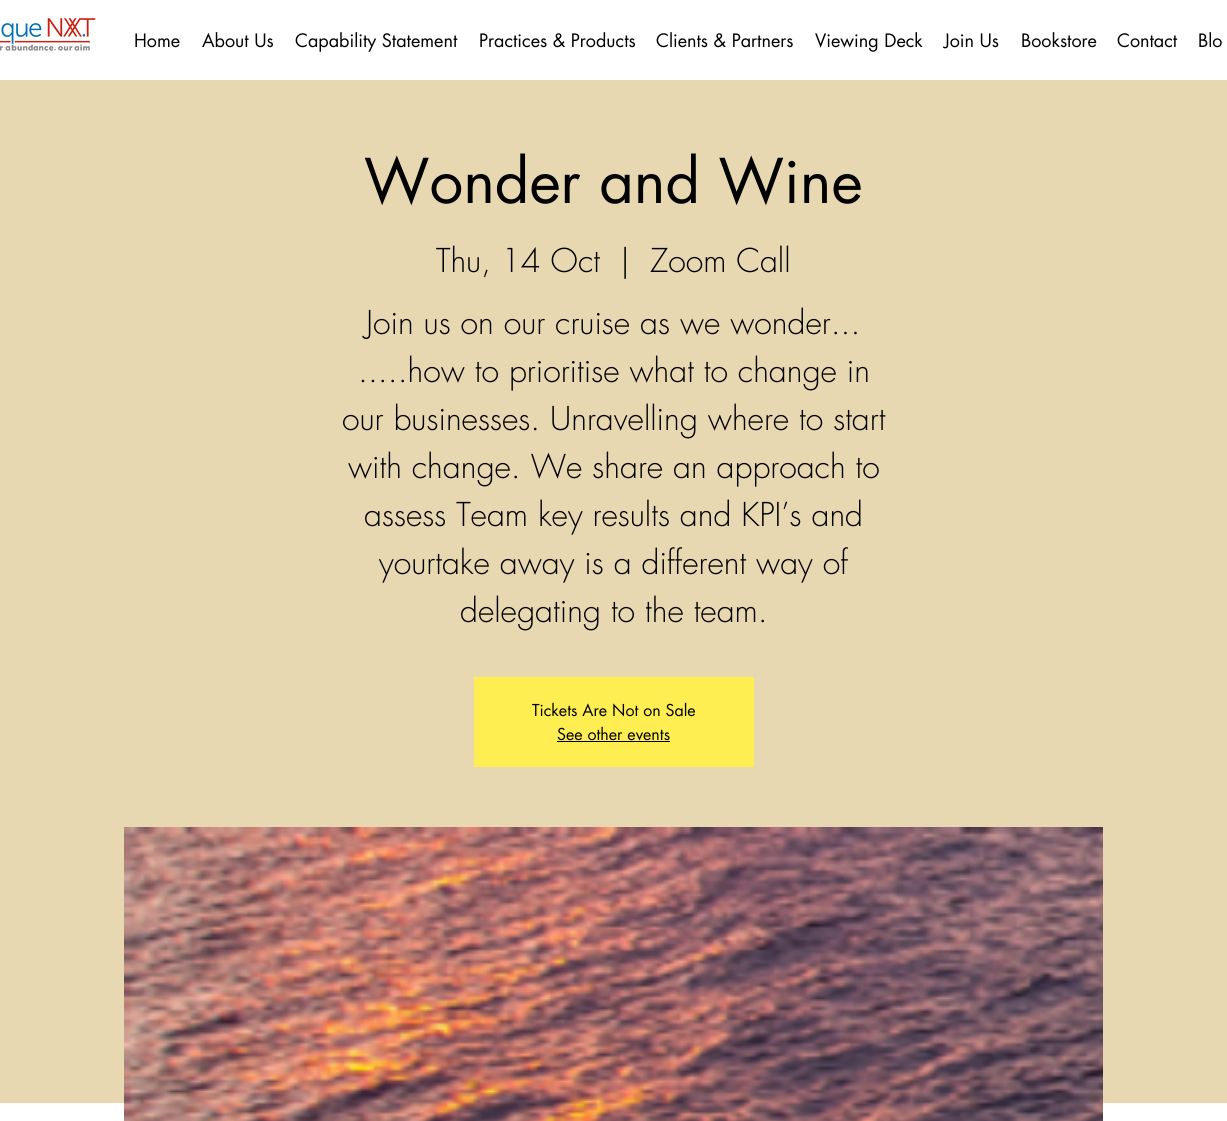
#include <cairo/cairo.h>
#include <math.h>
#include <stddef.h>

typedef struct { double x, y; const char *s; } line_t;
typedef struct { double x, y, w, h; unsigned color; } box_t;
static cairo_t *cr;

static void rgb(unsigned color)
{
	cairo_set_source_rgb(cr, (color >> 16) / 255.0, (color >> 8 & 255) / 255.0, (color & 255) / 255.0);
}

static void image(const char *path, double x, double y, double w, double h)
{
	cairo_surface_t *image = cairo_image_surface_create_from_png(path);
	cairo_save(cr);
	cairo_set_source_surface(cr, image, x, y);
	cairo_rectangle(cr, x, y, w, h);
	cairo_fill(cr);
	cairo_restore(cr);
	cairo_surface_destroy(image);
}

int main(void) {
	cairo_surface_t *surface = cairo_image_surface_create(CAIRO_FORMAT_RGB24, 1227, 1121);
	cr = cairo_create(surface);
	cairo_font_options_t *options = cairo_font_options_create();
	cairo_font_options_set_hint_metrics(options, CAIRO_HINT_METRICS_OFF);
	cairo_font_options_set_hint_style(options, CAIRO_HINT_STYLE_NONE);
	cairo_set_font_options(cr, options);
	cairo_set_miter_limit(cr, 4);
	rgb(0xffffff);
	cairo_paint(cr);
	image("img/1.png", 0, 18, 96, 33);
	{
		static const box_t items[] = {
			{0, 80, 1227, 1023, 0xe8d8b1},
			{474, 677, 280, 90, 0xffee51},
			{557, 741, 113, 1, 0x000000},
		};
		for (size_t i = 0; i < sizeof items / sizeof *items; i++) {
			rgb(items[i].color);
			cairo_rectangle(cr, items[i].x, items[i].y, items[i].w, items[i].h);
			cairo_fill(cr);
		}
	}
	image("img/2.png", 124, 827, 979, 294);
	cairo_select_font_face(cr, "futura", CAIRO_FONT_SLANT_NORMAL, CAIRO_FONT_WEIGHT_NORMAL);
	cairo_set_font_size(cr, 18);
	{
		static const line_t items[] = {
			{134, 47, "Home"},
			{202, 47, "About Us"},
			{295, 47, "Capability Statement"},
			{479, 47, "Practices & Products"},
			{656, 47, "Clients & Partners"},
			{815, 47, "Viewing Deck"},
			{944, 47, "Join Us"},
			{1021, 47, "Bookstore"},
			{1117, 47, "Contact"},
			{1198, 47, "Blo"},
		};
		for (size_t i = 0; i < sizeof items / sizeof *items; i++) {
			cairo_move_to(cr, items[i].x, items[i].y);
			cairo_show_text(cr, items[i].s);
		}
	}
	cairo_set_font_size(cr, 60);
	cairo_move_to(cr, 364, 203);
	cairo_show_text(cr, "Wonder and Wine");
	cairo_select_font_face(cr, "futura Light", CAIRO_FONT_SLANT_NORMAL, CAIRO_FONT_WEIGHT_NORMAL);
	cairo_set_font_size(cr, 32);
	{
		static const line_t items[] = {
			{436, 272, "Thu, 14 Oct"},
			{620, 272, "|"},
			{650, 272, "Zoom Call"},
			{366, 334, "Join us on our cruise as we wonder..."},
			{358, 382, ".....how to prioritise what to change in"},
			{342, 430, "our businesses. Unravelling where to start"},
			{348, 478, "with change. We share an approach to"},
			{364, 526, "assess Team key results and KPI’s and"},
			{379, 574, "yourtake away is a different way of"},
			{460, 622, "delegating to the team."},
		};
		for (size_t i = 0; i < sizeof items / sizeof *items; i++) {
			cairo_move_to(cr, items[i].x, items[i].y);
			cairo_show_text(cr, items[i].s);
		}
	}
	cairo_select_font_face(cr, "futura", CAIRO_FONT_SLANT_NORMAL, CAIRO_FONT_WEIGHT_NORMAL);
	cairo_set_font_size(cr, 16);
	cairo_move_to(cr, 532, 716);
	cairo_show_text(cr, "Tickets Are Not on Sale");
	cairo_move_to(cr, 557, 740);
	cairo_show_text(cr, "See other events");
	cairo_surface_write_to_png(surface, "page.png");
	cairo_font_options_destroy(options);
	cairo_destroy(cr);
	cairo_surface_destroy(surface);
	return 0;
}
